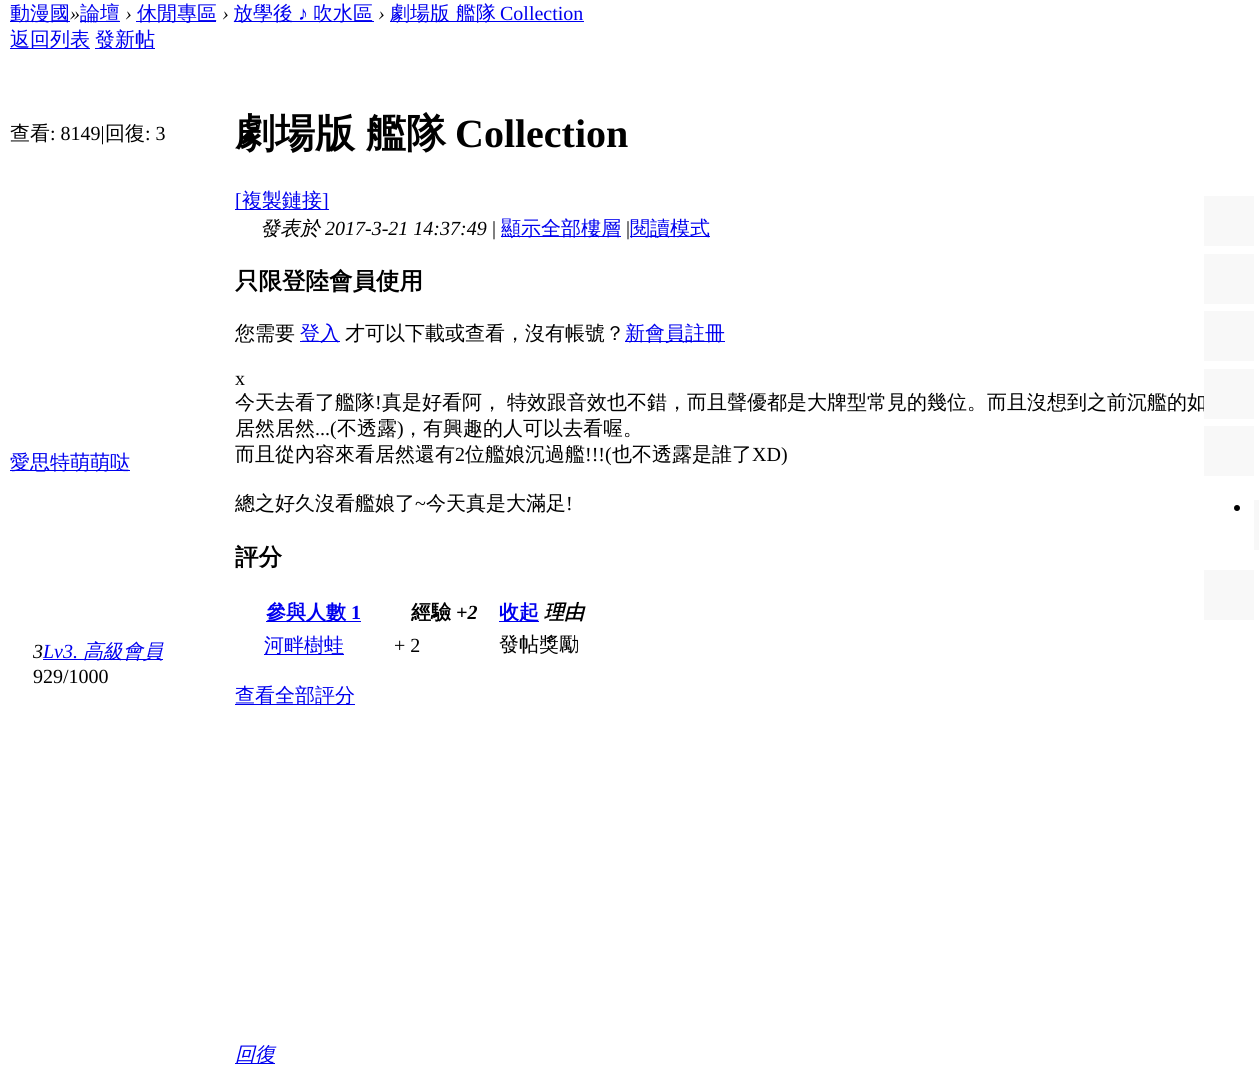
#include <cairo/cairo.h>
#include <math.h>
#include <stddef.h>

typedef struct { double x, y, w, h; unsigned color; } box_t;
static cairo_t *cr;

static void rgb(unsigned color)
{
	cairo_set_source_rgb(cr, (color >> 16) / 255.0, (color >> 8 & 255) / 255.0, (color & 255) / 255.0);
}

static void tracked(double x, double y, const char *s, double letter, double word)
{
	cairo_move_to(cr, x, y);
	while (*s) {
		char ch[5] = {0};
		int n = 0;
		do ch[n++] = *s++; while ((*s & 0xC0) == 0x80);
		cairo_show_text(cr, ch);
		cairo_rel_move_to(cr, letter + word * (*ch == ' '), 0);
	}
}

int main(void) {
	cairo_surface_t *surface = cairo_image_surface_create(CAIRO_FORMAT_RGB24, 1259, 1065);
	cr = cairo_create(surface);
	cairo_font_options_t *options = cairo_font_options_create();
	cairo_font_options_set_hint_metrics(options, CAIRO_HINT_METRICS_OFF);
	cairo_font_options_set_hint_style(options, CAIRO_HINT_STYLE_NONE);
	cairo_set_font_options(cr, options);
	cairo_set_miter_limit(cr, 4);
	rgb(0xffffff);
	cairo_paint(cr);
	{
		static const box_t items[] = {
			{10, 21, 60, 1, 0x0000ee},
			{80, 21, 40, 1, 0x0000ee},
			{136, 21, 80, 1, 0x0000ee},
			{234, 21, 140, 1, 0x0000ee},
			{390, 21, 194, 1, 0x0000ee},
			{10, 48, 80, 1, 0x0000ee},
			{95, 48, 60, 1, 0x0000ee},
			{235, 209, 94, 1, 0x0000ee},
			{10, 470, 120, 1, 0x0000ee},
			{43, 659, 120, 1, 0x0000ee},
			{501, 236, 120, 1, 0x0000ee},
			{630, 236, 80, 1, 0x0000ee},
			{300, 341, 40, 1, 0x0000ee},
			{625, 341, 100, 1, 0x0000ee},
			{266, 621, 95, 1, 0x0000ee},
			{499, 621, 40, 1, 0x0000ee},
			{264, 654, 80, 1, 0x0000ee},
			{235, 704, 120, 1, 0x0000ee},
			{235, 1063, 40, 1, 0x0000ee},
			{1204, 196, 50, 50, 0xf8f8f8},
			{1204, 254, 50, 50, 0xf8f8f8},
			{1204, 311, 50, 50, 0xf8f8f8},
			{1204, 426, 50, 50, 0xf8f8f8},
		};
		for (size_t i = 0; i < sizeof items / sizeof *items; i++) {
			rgb(items[i].color);
			cairo_rectangle(cr, items[i].x, items[i].y, items[i].w, items[i].h);
			cairo_fill(cr);
		}
	}
	rgb(0x000000);
	cairo_arc(cr, 1237, 508, 3, 0, 2 * M_PI);
	cairo_fill(cr);
	rgb(0xf8f8f8);
	cairo_rectangle(cr, 1254, 500, 5, 50);
	cairo_fill(cr);
	cairo_rectangle(cr, 1204, 570, 50, 50);
	cairo_fill(cr);
	cairo_select_font_face(cr, "WenQuanYi Zen Hei Medium", CAIRO_FONT_SLANT_NORMAL, CAIRO_FONT_WEIGHT_NORMAL);
	cairo_set_font_size(cr, 20);
	rgb(0x0000ee);
	cairo_move_to(cr, 10, 20);
	cairo_show_text(cr, "動漫國");
	cairo_select_font_face(cr, "Liberation Serif", CAIRO_FONT_SLANT_ITALIC, CAIRO_FONT_WEIGHT_NORMAL);
	rgb(0x000000);
	cairo_move_to(cr, 70, 20);
	cairo_show_text(cr, "»");
	cairo_select_font_face(cr, "WenQuanYi Zen Hei Medium", CAIRO_FONT_SLANT_NORMAL, CAIRO_FONT_WEIGHT_NORMAL);
	rgb(0x0000ee);
	cairo_move_to(cr, 80, 20);
	cairo_show_text(cr, "論壇");
	cairo_select_font_face(cr, "Liberation Serif", CAIRO_FONT_SLANT_ITALIC, CAIRO_FONT_WEIGHT_NORMAL);
	rgb(0x000000);
	cairo_move_to(cr, 125, 20);
	cairo_show_text(cr, "›");
	cairo_select_font_face(cr, "WenQuanYi Zen Hei Medium", CAIRO_FONT_SLANT_NORMAL, CAIRO_FONT_WEIGHT_NORMAL);
	rgb(0x0000ee);
	cairo_move_to(cr, 137, 20);
	cairo_show_text(cr, "休閒專區");
	cairo_select_font_face(cr, "Liberation Serif", CAIRO_FONT_SLANT_ITALIC, CAIRO_FONT_WEIGHT_NORMAL);
	rgb(0x000000);
	cairo_move_to(cr, 222, 20);
	cairo_show_text(cr, "›");
	cairo_select_font_face(cr, "WenQuanYi Zen Hei Medium", CAIRO_FONT_SLANT_NORMAL, CAIRO_FONT_WEIGHT_NORMAL);
	rgb(0x0000ee);
	cairo_move_to(cr, 233, 20);
	cairo_show_text(cr, "放學後");
	cairo_select_font_face(cr, "Liberation Serif", CAIRO_FONT_SLANT_NORMAL, CAIRO_FONT_WEIGHT_NORMAL);
	cairo_move_to(cr, 298, 20);
	cairo_show_text(cr, "♪");
	cairo_select_font_face(cr, "WenQuanYi Zen Hei Medium", CAIRO_FONT_SLANT_NORMAL, CAIRO_FONT_WEIGHT_NORMAL);
	cairo_move_to(cr, 313, 20);
	cairo_show_text(cr, "吹水區");
	cairo_select_font_face(cr, "Liberation Serif", CAIRO_FONT_SLANT_ITALIC, CAIRO_FONT_WEIGHT_NORMAL);
	rgb(0x000000);
	cairo_move_to(cr, 378, 20);
	cairo_show_text(cr, "›");
	cairo_select_font_face(cr, "WenQuanYi Zen Hei Medium", CAIRO_FONT_SLANT_NORMAL, CAIRO_FONT_WEIGHT_NORMAL);
	rgb(0x0000ee);
	cairo_move_to(cr, 390, 20);
	cairo_show_text(cr, "劇場版 艦隊");
	cairo_select_font_face(cr, "Liberation Serif", CAIRO_FONT_SLANT_NORMAL, CAIRO_FONT_WEIGHT_NORMAL);
	cairo_move_to(cr, 500, 20);
	cairo_show_text(cr, "Collection");
	cairo_select_font_face(cr, "WenQuanYi Zen Hei Medium", CAIRO_FONT_SLANT_NORMAL, CAIRO_FONT_WEIGHT_NORMAL);
	cairo_move_to(cr, 10, 46);
	cairo_show_text(cr, "返回列表");
	cairo_move_to(cr, 95, 46);
	cairo_show_text(cr, "發新帖");
	rgb(0x000000);
	cairo_move_to(cr, 10, 140);
	cairo_show_text(cr, "查看");
	cairo_select_font_face(cr, "Liberation Serif", CAIRO_FONT_SLANT_NORMAL, CAIRO_FONT_WEIGHT_NORMAL);
	cairo_move_to(cr, 50, 140);
	cairo_show_text(cr, ": 8149|");
	cairo_select_font_face(cr, "WenQuanYi Zen Hei Medium", CAIRO_FONT_SLANT_NORMAL, CAIRO_FONT_WEIGHT_NORMAL);
	cairo_move_to(cr, 105, 140);
	cairo_show_text(cr, "回復");
	cairo_select_font_face(cr, "Liberation Serif", CAIRO_FONT_SLANT_NORMAL, CAIRO_FONT_WEIGHT_NORMAL);
	cairo_move_to(cr, 145, 140);
	cairo_show_text(cr, ": 3");
	cairo_select_font_face(cr, "WenQuanYi Zen Hei", CAIRO_FONT_SLANT_NORMAL, CAIRO_FONT_WEIGHT_BOLD);
	cairo_set_font_size(cr, 40);
	tracked(235, 147, "劇場版 艦隊", 0, -1);
	cairo_select_font_face(cr, "Liberation Serif", CAIRO_FONT_SLANT_NORMAL, CAIRO_FONT_WEIGHT_BOLD);
	cairo_move_to(cr, 455, 147);
	cairo_show_text(cr, "Collection");
	cairo_select_font_face(cr, "Liberation Serif", CAIRO_FONT_SLANT_NORMAL, CAIRO_FONT_WEIGHT_NORMAL);
	cairo_set_font_size(cr, 20);
	rgb(0x0000ee);
	cairo_move_to(cr, 235, 207);
	cairo_show_text(cr, "[");
	cairo_select_font_face(cr, "WenQuanYi Zen Hei Medium", CAIRO_FONT_SLANT_NORMAL, CAIRO_FONT_WEIGHT_NORMAL);
	cairo_move_to(cr, 242, 207);
	cairo_show_text(cr, "複製鏈接");
	cairo_select_font_face(cr, "Liberation Serif", CAIRO_FONT_SLANT_NORMAL, CAIRO_FONT_WEIGHT_NORMAL);
	cairo_move_to(cr, 322, 207);
	cairo_show_text(cr, "]");
	cairo_select_font_face(cr, "WenQuanYi Zen Hei Medium", CAIRO_FONT_SLANT_NORMAL, CAIRO_FONT_WEIGHT_NORMAL);
	cairo_move_to(cr, 10, 469);
	cairo_show_text(cr, "愛思特萌萌哒");
	cairo_select_font_face(cr, "Liberation Serif", CAIRO_FONT_SLANT_ITALIC, CAIRO_FONT_WEIGHT_NORMAL);
	rgb(0x000000);
	cairo_move_to(cr, 33, 658);
	cairo_show_text(cr, "3");
	rgb(0x0000ee);
	cairo_move_to(cr, 43, 658);
	cairo_show_text(cr, "Lv3.");
	cairo_select_font_face(cr, "WenQuanYi Zen Hei Medium", CAIRO_FONT_SLANT_ITALIC, CAIRO_FONT_WEIGHT_NORMAL);
	cairo_move_to(cr, 83, 658);
	cairo_show_text(cr, "高級會員");
	cairo_select_font_face(cr, "Liberation Serif", CAIRO_FONT_SLANT_NORMAL, CAIRO_FONT_WEIGHT_NORMAL);
	rgb(0x000000);
	cairo_move_to(cr, 33, 683);
	cairo_show_text(cr, "929/1000");
	cairo_select_font_face(cr, "WenQuanYi Zen Hei Medium", CAIRO_FONT_SLANT_ITALIC, CAIRO_FONT_WEIGHT_NORMAL);
	cairo_move_to(cr, 260, 235);
	cairo_show_text(cr, "發表於");
	cairo_select_font_face(cr, "Liberation Serif", CAIRO_FONT_SLANT_ITALIC, CAIRO_FONT_WEIGHT_NORMAL);
	cairo_move_to(cr, 325, 235);
	cairo_show_text(cr, "2017-3-21 14:37:49");
	cairo_select_font_face(cr, "Liberation Serif", CAIRO_FONT_SLANT_NORMAL, CAIRO_FONT_WEIGHT_NORMAL);
	cairo_move_to(cr, 492, 235);
	cairo_show_text(cr, "|");
	cairo_select_font_face(cr, "WenQuanYi Zen Hei Medium", CAIRO_FONT_SLANT_NORMAL, CAIRO_FONT_WEIGHT_NORMAL);
	rgb(0x0000ee);
	cairo_move_to(cr, 501, 235);
	cairo_show_text(cr, "顯示全部樓層");
	cairo_select_font_face(cr, "Liberation Serif", CAIRO_FONT_SLANT_NORMAL, CAIRO_FONT_WEIGHT_NORMAL);
	rgb(0x000000);
	cairo_move_to(cr, 626, 235);
	cairo_show_text(cr, "|");
	cairo_select_font_face(cr, "WenQuanYi Zen Hei Medium", CAIRO_FONT_SLANT_NORMAL, CAIRO_FONT_WEIGHT_NORMAL);
	rgb(0x0000ee);
	cairo_move_to(cr, 630, 235);
	cairo_show_text(cr, "閱讀模式");
	cairo_select_font_face(cr, "WenQuanYi Zen Hei", CAIRO_FONT_SLANT_NORMAL, CAIRO_FONT_WEIGHT_BOLD);
	cairo_set_font_size(cr, 23.5);
	rgb(0x000000);
	cairo_move_to(cr, 235, 289);
	cairo_show_text(cr, "只限登陸會員使用");
	cairo_select_font_face(cr, "WenQuanYi Zen Hei Medium", CAIRO_FONT_SLANT_NORMAL, CAIRO_FONT_WEIGHT_NORMAL);
	cairo_set_font_size(cr, 20);
	cairo_move_to(cr, 235, 340);
	cairo_show_text(cr, "您需要");
	rgb(0x0000ee);
	cairo_move_to(cr, 300, 340);
	cairo_show_text(cr, "登入");
	rgb(0x000000);
	cairo_move_to(cr, 345, 340);
	cairo_show_text(cr, "才可以下載或查看，沒有帳號？");
	rgb(0x0000ee);
	cairo_move_to(cr, 625, 340);
	cairo_show_text(cr, "新會員註冊");
	cairo_select_font_face(cr, "Liberation Serif", CAIRO_FONT_SLANT_NORMAL, CAIRO_FONT_WEIGHT_NORMAL);
	rgb(0x000000);
	cairo_move_to(cr, 235, 385);
	cairo_show_text(cr, "x");
	cairo_select_font_face(cr, "WenQuanYi Zen Hei Medium", CAIRO_FONT_SLANT_NORMAL, CAIRO_FONT_WEIGHT_NORMAL);
	cairo_move_to(cr, 235, 409);
	cairo_show_text(cr, "今天去看了艦隊");
	cairo_select_font_face(cr, "Liberation Serif", CAIRO_FONT_SLANT_NORMAL, CAIRO_FONT_WEIGHT_NORMAL);
	cairo_move_to(cr, 375, 409);
	cairo_show_text(cr, "!");
	cairo_select_font_face(cr, "WenQuanYi Zen Hei Medium", CAIRO_FONT_SLANT_NORMAL, CAIRO_FONT_WEIGHT_NORMAL);
	tracked(382, 409, "真是好看阿， 特效跟音效也不錯，而且聲優都是大牌型常見的幾位。而且沒想到之前沉艦的如", 0, -1);
	cairo_move_to(cr, 235, 435);
	cairo_show_text(cr, "居然居然");
	cairo_select_font_face(cr, "Liberation Serif", CAIRO_FONT_SLANT_NORMAL, CAIRO_FONT_WEIGHT_NORMAL);
	cairo_move_to(cr, 315, 435);
	cairo_show_text(cr, "...(");
	cairo_select_font_face(cr, "WenQuanYi Zen Hei Medium", CAIRO_FONT_SLANT_NORMAL, CAIRO_FONT_WEIGHT_NORMAL);
	cairo_move_to(cr, 337, 435);
	cairo_show_text(cr, "不透露");
	cairo_select_font_face(cr, "Liberation Serif", CAIRO_FONT_SLANT_NORMAL, CAIRO_FONT_WEIGHT_NORMAL);
	cairo_move_to(cr, 397, 435);
	cairo_show_text(cr, ")");
	cairo_select_font_face(cr, "WenQuanYi Zen Hei Medium", CAIRO_FONT_SLANT_NORMAL, CAIRO_FONT_WEIGHT_NORMAL);
	cairo_move_to(cr, 403, 435);
	cairo_show_text(cr, "，有興趣的人可以去看喔。");
	cairo_move_to(cr, 235, 461);
	cairo_show_text(cr, "而且從內容來看居然還有");
	cairo_select_font_face(cr, "Liberation Serif", CAIRO_FONT_SLANT_NORMAL, CAIRO_FONT_WEIGHT_NORMAL);
	cairo_move_to(cr, 455, 461);
	cairo_show_text(cr, "2");
	cairo_select_font_face(cr, "WenQuanYi Zen Hei Medium", CAIRO_FONT_SLANT_NORMAL, CAIRO_FONT_WEIGHT_NORMAL);
	cairo_move_to(cr, 465, 461);
	cairo_show_text(cr, "位艦娘沉過艦");
	cairo_select_font_face(cr, "Liberation Serif", CAIRO_FONT_SLANT_NORMAL, CAIRO_FONT_WEIGHT_NORMAL);
	cairo_move_to(cr, 585, 461);
	cairo_show_text(cr, "!!!(");
	cairo_select_font_face(cr, "WenQuanYi Zen Hei Medium", CAIRO_FONT_SLANT_NORMAL, CAIRO_FONT_WEIGHT_NORMAL);
	cairo_move_to(cr, 612, 461);
	cairo_show_text(cr, "也不透露是誰了");
	cairo_select_font_face(cr, "Liberation Serif", CAIRO_FONT_SLANT_NORMAL, CAIRO_FONT_WEIGHT_NORMAL);
	cairo_move_to(cr, 752, 461);
	cairo_show_text(cr, "XD)");
	cairo_select_font_face(cr, "WenQuanYi Zen Hei Medium", CAIRO_FONT_SLANT_NORMAL, CAIRO_FONT_WEIGHT_NORMAL);
	cairo_move_to(cr, 235, 510);
	cairo_show_text(cr, "總之好久沒看艦娘了");
	cairo_select_font_face(cr, "Liberation Serif", CAIRO_FONT_SLANT_NORMAL, CAIRO_FONT_WEIGHT_NORMAL);
	cairo_move_to(cr, 415, 510);
	cairo_show_text(cr, "~");
	cairo_select_font_face(cr, "WenQuanYi Zen Hei Medium", CAIRO_FONT_SLANT_NORMAL, CAIRO_FONT_WEIGHT_NORMAL);
	cairo_move_to(cr, 426, 510);
	cairo_show_text(cr, "今天真是大滿足");
	cairo_select_font_face(cr, "Liberation Serif", CAIRO_FONT_SLANT_NORMAL, CAIRO_FONT_WEIGHT_NORMAL);
	cairo_move_to(cr, 566, 510);
	cairo_show_text(cr, "!");
	cairo_select_font_face(cr, "WenQuanYi Zen Hei", CAIRO_FONT_SLANT_NORMAL, CAIRO_FONT_WEIGHT_BOLD);
	cairo_set_font_size(cr, 23.5);
	cairo_move_to(cr, 235, 565);
	cairo_show_text(cr, "評分");
	cairo_set_font_size(cr, 20);
	rgb(0x0000ee);
	cairo_move_to(cr, 266, 619);
	cairo_show_text(cr, "參與人數");
	cairo_select_font_face(cr, "Liberation Serif", CAIRO_FONT_SLANT_NORMAL, CAIRO_FONT_WEIGHT_BOLD);
	cairo_move_to(cr, 351, 619);
	cairo_show_text(cr, "1");
	cairo_select_font_face(cr, "WenQuanYi Zen Hei", CAIRO_FONT_SLANT_NORMAL, CAIRO_FONT_WEIGHT_BOLD);
	rgb(0x000000);
	cairo_move_to(cr, 411, 619);
	cairo_show_text(cr, "經驗");
	cairo_select_font_face(cr, "Liberation Serif", CAIRO_FONT_SLANT_ITALIC, CAIRO_FONT_WEIGHT_BOLD);
	cairo_move_to(cr, 456, 619);
	cairo_show_text(cr, "+2");
	cairo_select_font_face(cr, "WenQuanYi Zen Hei", CAIRO_FONT_SLANT_NORMAL, CAIRO_FONT_WEIGHT_BOLD);
	rgb(0x0000ee);
	cairo_move_to(cr, 499, 619);
	cairo_show_text(cr, "收起");
	cairo_select_font_face(cr, "WenQuanYi Zen Hei", CAIRO_FONT_SLANT_ITALIC, CAIRO_FONT_WEIGHT_BOLD);
	rgb(0x000000);
	cairo_move_to(cr, 544, 619);
	cairo_show_text(cr, "理由");
	cairo_select_font_face(cr, "WenQuanYi Zen Hei Medium", CAIRO_FONT_SLANT_NORMAL, CAIRO_FONT_WEIGHT_NORMAL);
	rgb(0x0000ee);
	cairo_move_to(cr, 264, 652);
	cairo_show_text(cr, "河畔樹蛙");
	cairo_select_font_face(cr, "Liberation Serif", CAIRO_FONT_SLANT_NORMAL, CAIRO_FONT_WEIGHT_NORMAL);
	rgb(0x000000);
	cairo_move_to(cr, 394, 652);
	cairo_show_text(cr, "+ 2");
	cairo_select_font_face(cr, "WenQuanYi Zen Hei Medium", CAIRO_FONT_SLANT_NORMAL, CAIRO_FONT_WEIGHT_NORMAL);
	cairo_move_to(cr, 499, 651);
	cairo_show_text(cr, "發帖獎勵");
	rgb(0x0000ee);
	cairo_move_to(cr, 235, 702);
	cairo_show_text(cr, "查看全部評分");
	cairo_select_font_face(cr, "WenQuanYi Zen Hei Medium", CAIRO_FONT_SLANT_ITALIC, CAIRO_FONT_WEIGHT_NORMAL);
	cairo_move_to(cr, 235, 1061);
	cairo_show_text(cr, "回復");
	rgb(0xf8f8f8);
	cairo_rectangle(cr, 1204, 369, 50, 50);
	cairo_fill(cr);
	cairo_surface_write_to_png(surface, "page.png");
	cairo_font_options_destroy(options);
	cairo_destroy(cr);
	cairo_surface_destroy(surface);
	return 0;
}
